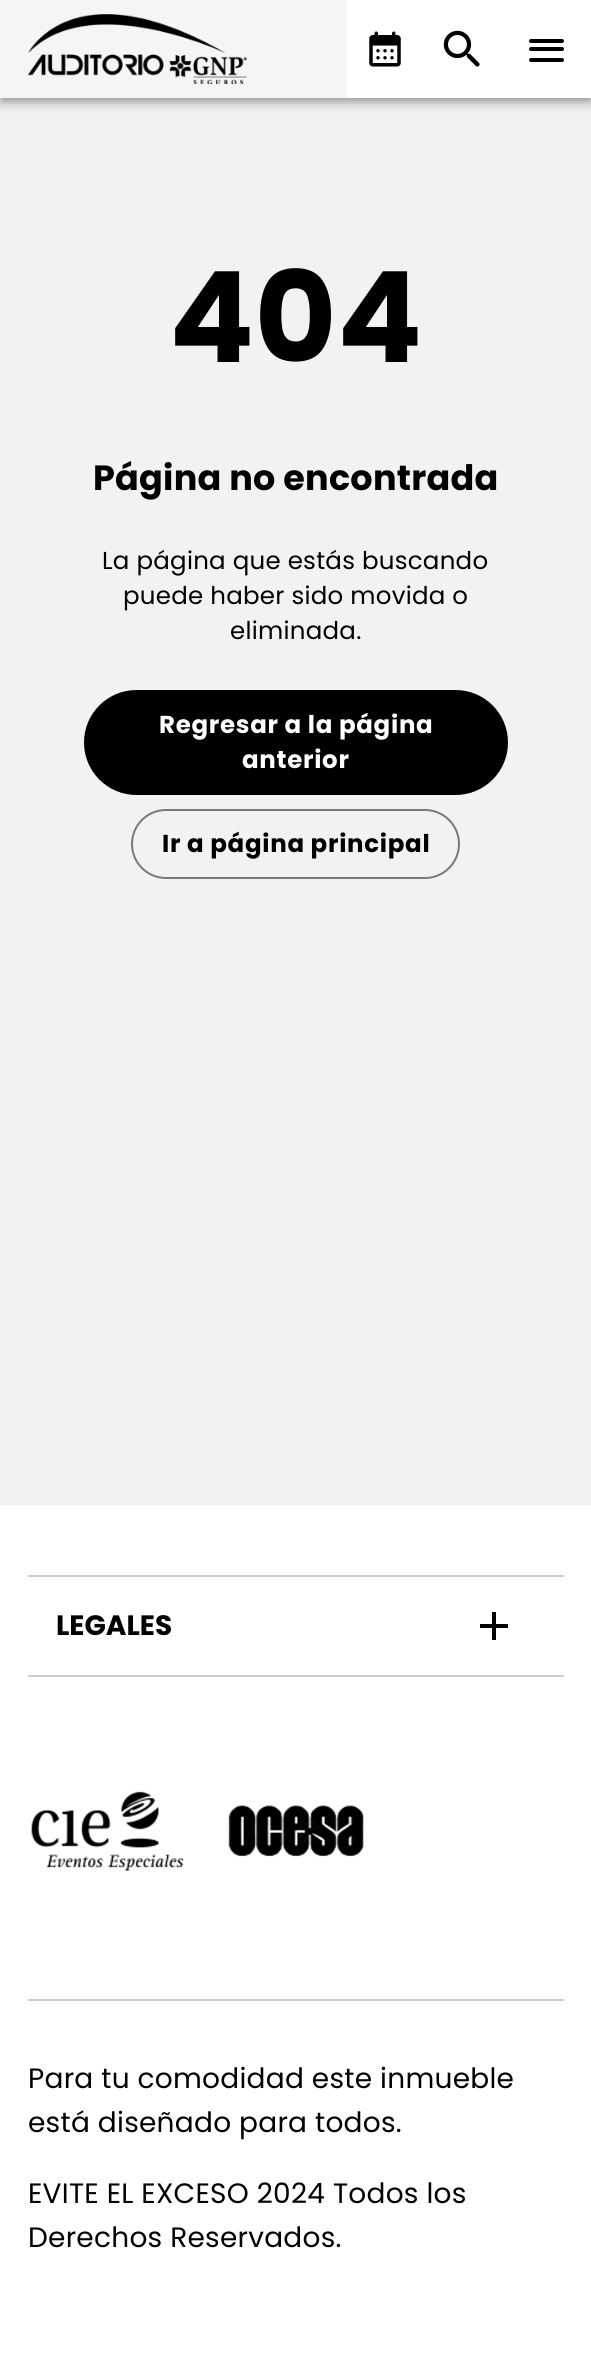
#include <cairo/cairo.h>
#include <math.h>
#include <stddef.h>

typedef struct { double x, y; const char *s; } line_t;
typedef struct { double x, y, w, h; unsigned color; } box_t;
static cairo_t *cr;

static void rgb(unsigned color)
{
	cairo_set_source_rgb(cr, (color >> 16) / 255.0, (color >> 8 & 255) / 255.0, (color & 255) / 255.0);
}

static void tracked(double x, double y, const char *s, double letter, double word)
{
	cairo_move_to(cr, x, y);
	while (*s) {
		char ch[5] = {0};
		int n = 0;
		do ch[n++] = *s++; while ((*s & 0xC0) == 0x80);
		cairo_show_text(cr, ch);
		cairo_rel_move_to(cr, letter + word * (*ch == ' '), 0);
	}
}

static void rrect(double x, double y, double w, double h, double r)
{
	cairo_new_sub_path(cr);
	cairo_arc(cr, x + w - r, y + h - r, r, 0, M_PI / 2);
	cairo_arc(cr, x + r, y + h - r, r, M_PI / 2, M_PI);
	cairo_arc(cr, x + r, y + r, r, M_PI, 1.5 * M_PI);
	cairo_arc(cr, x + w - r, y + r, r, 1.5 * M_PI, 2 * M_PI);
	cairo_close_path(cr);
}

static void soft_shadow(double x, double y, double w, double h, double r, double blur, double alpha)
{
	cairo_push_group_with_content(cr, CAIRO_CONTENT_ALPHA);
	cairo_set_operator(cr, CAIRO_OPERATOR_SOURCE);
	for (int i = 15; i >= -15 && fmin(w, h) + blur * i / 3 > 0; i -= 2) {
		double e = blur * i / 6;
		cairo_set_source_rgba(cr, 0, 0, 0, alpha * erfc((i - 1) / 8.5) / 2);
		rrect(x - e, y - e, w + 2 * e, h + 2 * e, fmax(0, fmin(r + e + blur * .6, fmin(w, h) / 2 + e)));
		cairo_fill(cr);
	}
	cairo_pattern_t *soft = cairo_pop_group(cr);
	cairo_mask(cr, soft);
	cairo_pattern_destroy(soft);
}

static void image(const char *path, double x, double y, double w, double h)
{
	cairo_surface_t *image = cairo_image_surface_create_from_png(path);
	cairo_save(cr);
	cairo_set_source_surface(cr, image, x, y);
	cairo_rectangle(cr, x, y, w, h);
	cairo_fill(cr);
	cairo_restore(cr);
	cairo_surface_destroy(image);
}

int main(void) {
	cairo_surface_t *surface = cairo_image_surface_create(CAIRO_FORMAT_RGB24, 591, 2357);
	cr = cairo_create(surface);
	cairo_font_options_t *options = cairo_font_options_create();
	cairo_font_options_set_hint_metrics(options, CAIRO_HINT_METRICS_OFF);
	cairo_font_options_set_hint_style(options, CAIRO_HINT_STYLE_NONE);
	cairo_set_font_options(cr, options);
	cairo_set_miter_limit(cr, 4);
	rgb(0xf2f2f2);
	cairo_paint(cr);
	rgb(0x000000);
	soft_shadow(0, 2, 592, 98, 0, 9, 0.12);
	soft_shadow(0, 7, 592, 98, 0, 4.5, 0.14);
	soft_shadow(2, 5, 588, 95, 0, 3.5, 0.2);
	rgb(0xffffff);
	cairo_rectangle(cr, 347, 0, 244, 98);
	cairo_fill(cr);
	rgb(0xf5f5f5);
	cairo_rectangle(cr, 0, 0, 347, 98);
	cairo_fill(cr);
	image("img/1.png", 28, 14, 219, 70);
	image("img/2.png", 369, 31, 32, 36);
	image("img/3.png", 443, 30, 37, 37);
	rgb(0x000000);
	rrect(529, 39, 35, 4, 2);
	cairo_fill(cr);
	rrect(529, 47, 35, 4, 2);
	cairo_fill(cr);
	rrect(529, 58, 35, 4, 2);
	cairo_fill(cr);
	rrect(84, 690, 424, 105, 52.5);
	cairo_fill(cr);
	rrect(132, 810, 327, 68, 34);
	rgb(0x797979);
	cairo_stroke(cr);
	{
		static const box_t items[] = {
			{0, 1505, 591, 852, 0xffffff},
			{28, 1575, 536, 2, 0xcccccc},
			{28, 1675, 536, 2, 0xcccccc},
			{480, 1624, 28, 4, 0x000000},
			{492, 1612, 4, 28, 0x000000},
		};
		for (size_t i = 0; i < sizeof items / sizeof *items; i++) {
			rgb(items[i].color);
			cairo_rectangle(cr, items[i].x, items[i].y, items[i].w, items[i].h);
			cairo_fill(cr);
		}
	}
	image("img/4.png", 31, 1791, 153, 80);
	image("img/5.png", 228, 1805, 136, 52);
	rgb(0xcccccc);
	cairo_rectangle(cr, 28, 1999, 536, 2);
	cairo_fill(cr);
	cairo_select_font_face(cr, "Poppins", CAIRO_FONT_SLANT_NORMAL, CAIRO_FONT_WEIGHT_BOLD);
	cairo_set_font_size(cr, 126);
	rgb(0x000000);
	tracked(169, 362, "404", 0.25, 0);
	cairo_set_font_size(cr, 35);
	tracked(93, 490, "Página no encontrada", 0.25, 0);
	cairo_select_font_face(cr, "Poppins", CAIRO_FONT_SLANT_NORMAL, CAIRO_FONT_WEIGHT_NORMAL);
	cairo_set_font_size(cr, 24.5);
	{
		static const line_t items[] = {
			{102, 569, "La página que estás buscando"},
			{123, 604, "puede haber sido movida o"},
			{230, 639, "eliminada."},
		};
		for (size_t i = 0; i < sizeof items / sizeof *items; i++) {
			tracked(items[i].x, items[i].y, items[i].s, 0.25, 0);
		}
	}
	cairo_select_font_face(cr, "Poppins", CAIRO_FONT_SLANT_NORMAL, CAIRO_FONT_WEIGHT_BOLD);
	rgb(0xffffff);
	tracked(159, 733, "Regresar a la página", 0.7, 0);
	tracked(242, 768, "anterior", 0.7, 0);
	rgb(0x000000);
	tracked(162, 852, "Ir a página principal", 0.7, 0);
	cairo_set_font_size(cr, 28);
	cairo_move_to(cr, 56, 1635);
	cairo_show_text(cr, "LEGALES");
	cairo_select_font_face(cr, "Poppins", CAIRO_FONT_SLANT_NORMAL, CAIRO_FONT_WEIGHT_NORMAL);
	{
		static const line_t items[] = {
			{28, 2088, "Para tu comodidad este inmueble"},
			{28, 2132, "está diseñado para todos."},
			{28, 2203, "EVITE EL EXCESO 2024 Todos los"},
			{28, 2247, "Derechos Reservados."},
		};
		for (size_t i = 0; i < sizeof items / sizeof *items; i++) {
			tracked(items[i].x, items[i].y, items[i].s, 0.25, 0);
		}
	}
	cairo_surface_write_to_png(surface, "page.png");
	cairo_font_options_destroy(options);
	cairo_destroy(cr);
	cairo_surface_destroy(surface);
	return 0;
}
